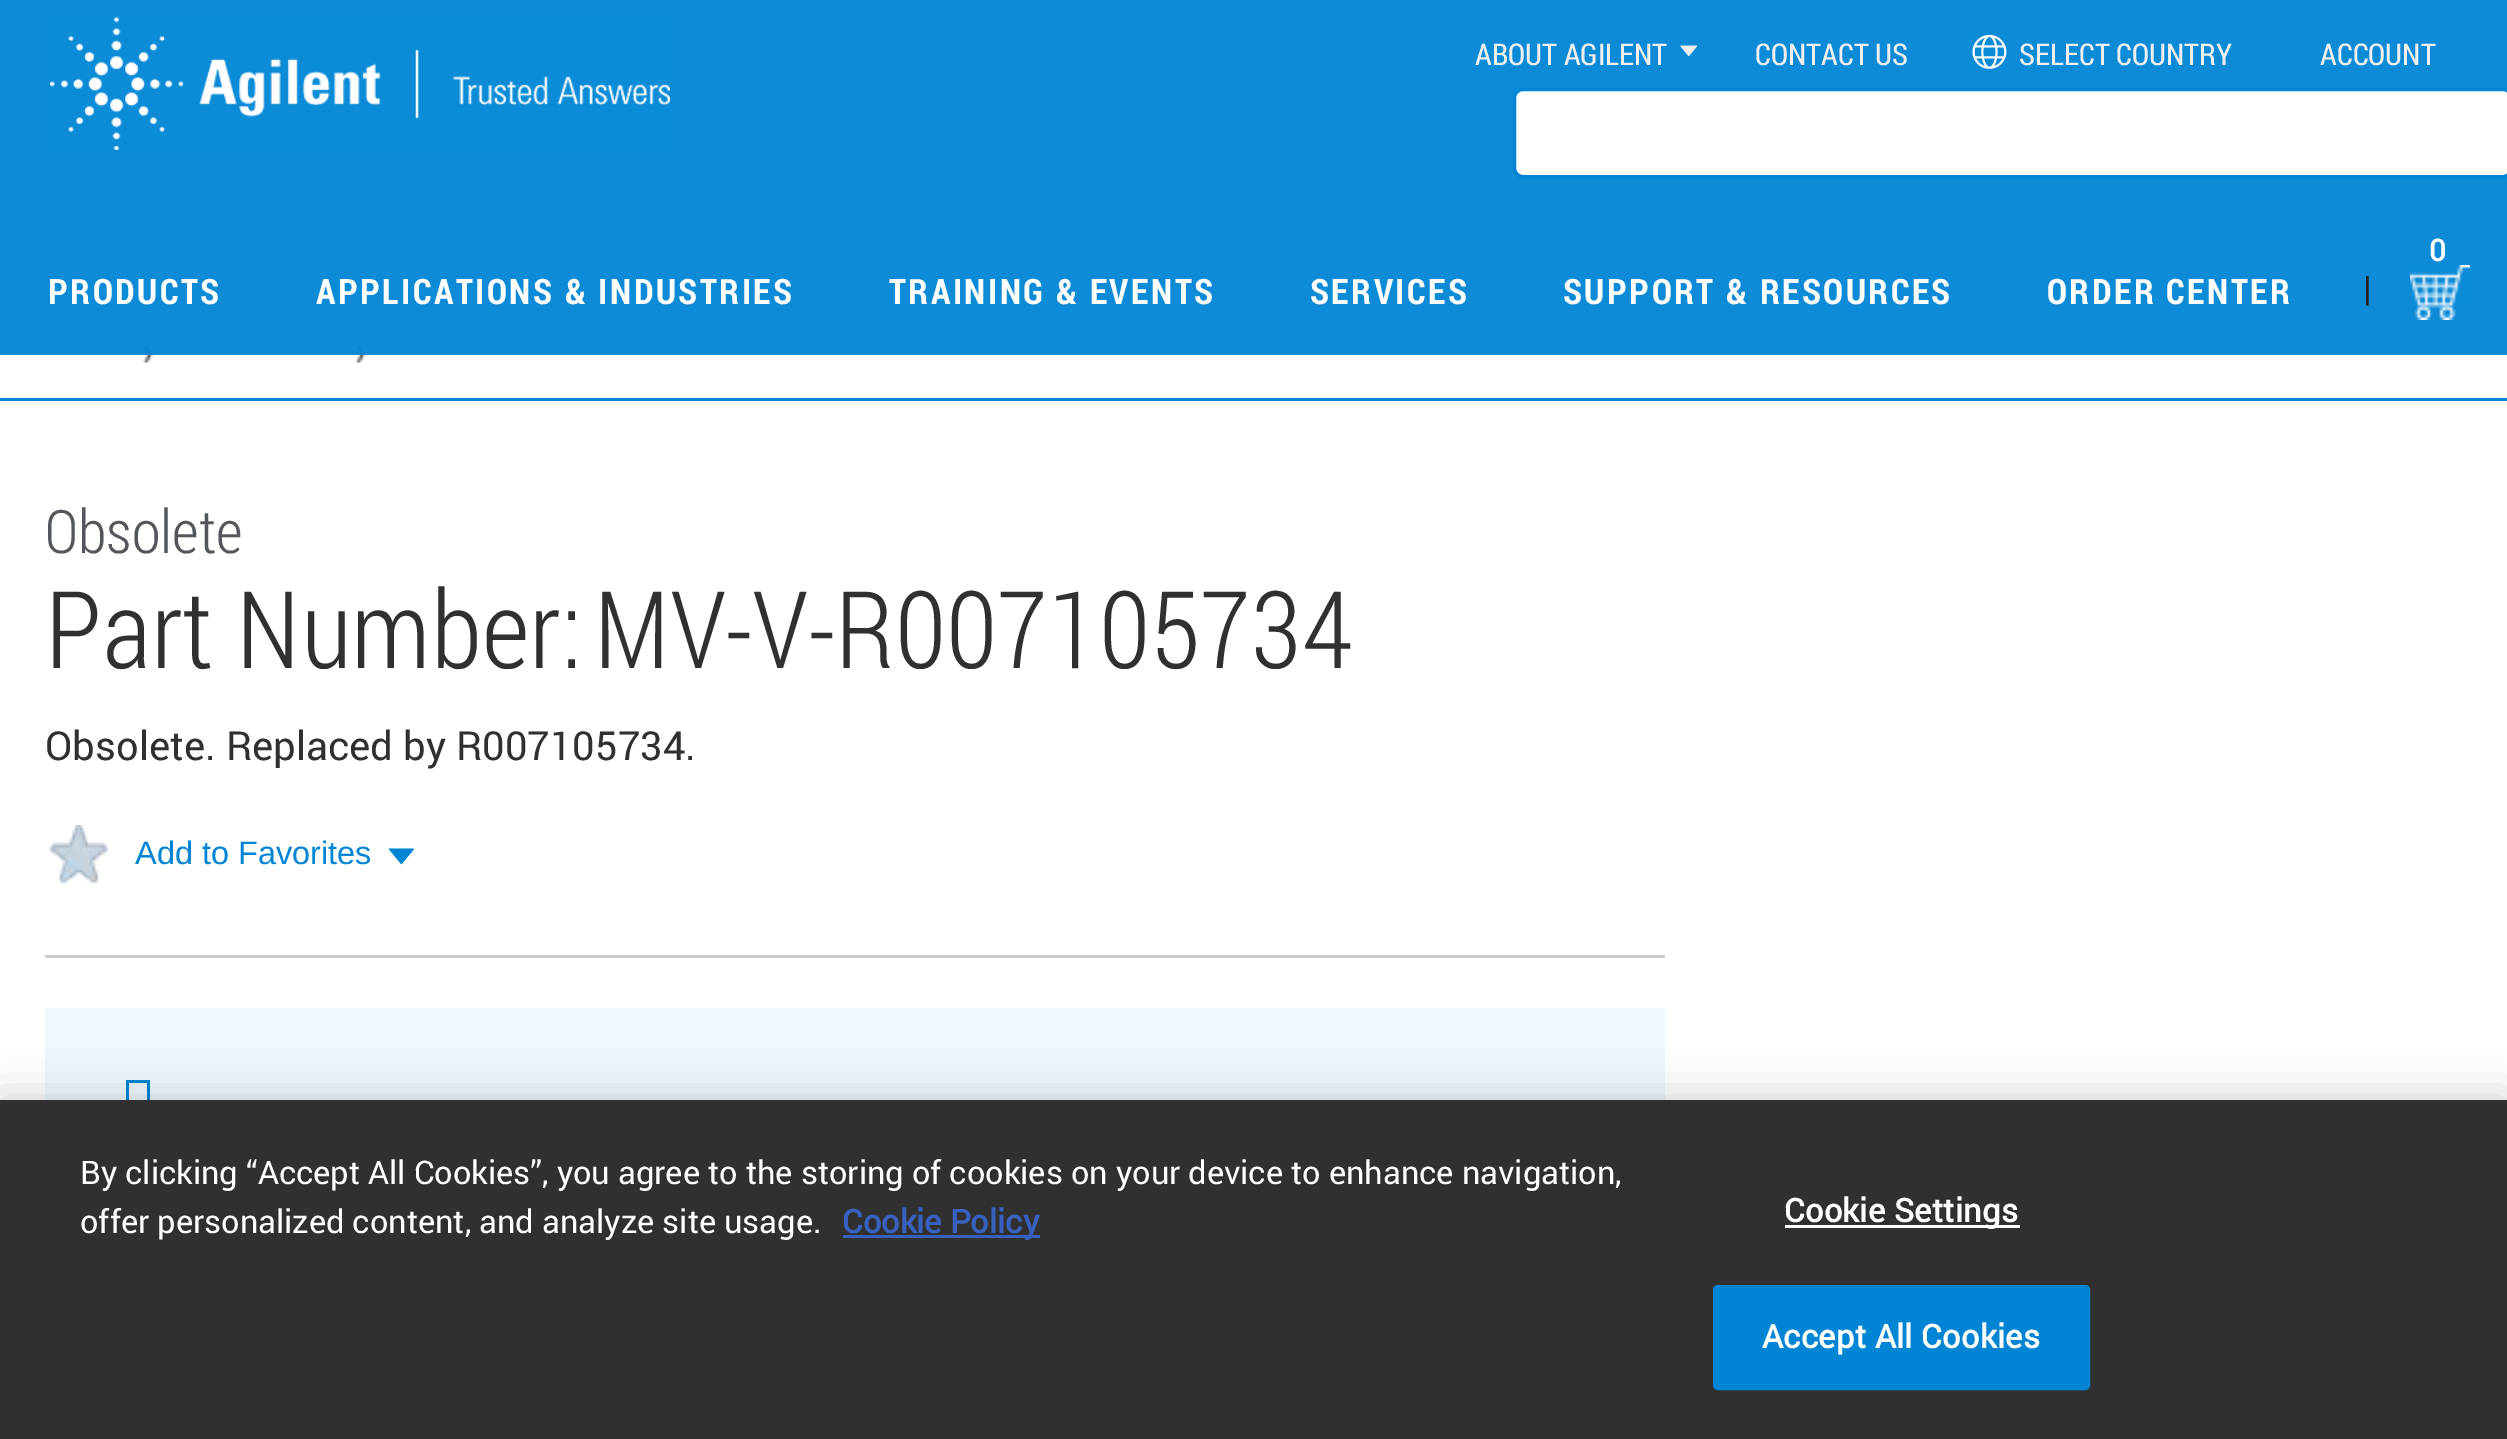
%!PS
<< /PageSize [2507 1439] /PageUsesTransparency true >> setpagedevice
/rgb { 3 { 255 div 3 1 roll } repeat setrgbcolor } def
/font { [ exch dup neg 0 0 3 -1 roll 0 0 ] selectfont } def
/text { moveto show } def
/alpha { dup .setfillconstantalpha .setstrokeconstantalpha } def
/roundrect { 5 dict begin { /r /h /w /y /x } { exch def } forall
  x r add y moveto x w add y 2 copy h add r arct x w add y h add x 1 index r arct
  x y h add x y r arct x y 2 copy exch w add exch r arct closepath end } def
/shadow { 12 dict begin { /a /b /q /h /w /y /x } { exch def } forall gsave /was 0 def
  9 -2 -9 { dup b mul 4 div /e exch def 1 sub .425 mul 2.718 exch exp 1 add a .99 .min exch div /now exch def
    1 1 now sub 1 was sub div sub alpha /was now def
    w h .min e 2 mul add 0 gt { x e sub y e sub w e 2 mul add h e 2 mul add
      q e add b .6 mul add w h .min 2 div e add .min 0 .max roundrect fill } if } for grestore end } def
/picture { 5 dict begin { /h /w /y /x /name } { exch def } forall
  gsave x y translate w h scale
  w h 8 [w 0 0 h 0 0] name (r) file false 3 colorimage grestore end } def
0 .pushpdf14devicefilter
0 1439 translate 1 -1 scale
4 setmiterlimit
246 246 246 rgb
0 0 2507 1439 rectfill
255 255 255 rgb
0 305 2507 795 rectfill
(img_05.rgb) 142 345 12 18 picture
(img_06.rgb) 355 345 11 18 picture
0.95 alpha
0 133 213 rgb
0 0 2507 355 rectfill
1 alpha
(img_01.rgb) 50 17 620 133 picture
(img_02.rgb) 1680 45 18 12 picture
(img_03.rgb) 1972 34 35 35 picture
255 255 255 rgb
1514.5 89.5 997 87 8.5 roundrect gsave fill grestore
0 133 213 rgb
3 setlinewidth
stroke
(img_04.rgb) 2410 265 60 55 picture
0 398 2507 3 rectfill
204 204 204 rgb
45 955 1620 3 rectfill
(img_07.rgb) 49 825 60 59 picture
(img_08.rgb) 388 848 26 17 picture
238 247 252 rgb
45 1008 1620 92 rectfill
0 133 213 rgb
126 1122 moveto 0 -42 rlineto 24 0 rlineto 0 42 rlineto closepath 129 1119 moveto 18 0 rlineto 0 -36 rlineto -18 0 rlineto closepath fill
0 0 0 rgb
0 1100 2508 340 0 22.5 0.2 shadow
48 48 48 rgb
0 1100 2507 339 rectfill
56 96 190 rgb
843 1235 197 3 rectfill
255 255 255 rgb
1785 1225 235 3 rectfill
0 133 213 rgb
1714.5 1286.5 374 102 3.5 roundrect gsave fill grestore
stroke
/RobotoCondensed-Regular 30 font
239 239 240 rgb
(ABOUT AGILENT) 1475 65 text
(CONTACT US) 1755 65 text
(SELECT COUNTRY) 2019 65 text
(ACCOUNT) 2320 65 text
/Roboto-Bold 30 font
255 255 255 rgb
2429 261 moveto 2.5 0 (0) ashow
/RobotoCondensed-Bold 35 font
48 304 moveto 2.5 0 (PRODUCTS) ashow
316 304 moveto 2.5 0 (APPLICATIONS & INDUSTRIES) ashow
889 304 moveto 2.5 0 (TRAINING & EVENTS) ashow
1310 304 moveto 2.5 0 (SERVICES) ashow
1563 304 moveto 2.5 0 (SUPPORT & RESOURCES) ashow
2047 304 moveto 2.5 0 (ORDER CENTER) ashow
/Roboto-Regular 35 font
32 32 32 rgb
(|) 2363 301 text
/RobotoCondensed-Light 60 font
83 86 90 rgb
(Obsolete) 45 553 text
/RobotoCondensed-Light 107.5 font
48 48 48 rgb
(Part Number:) 45 668 text
(MV-V-R007105734) 594 668 text
/Roboto-Regular 40 font
(Obsolete. Replaced by R007105734.) 45 760 text
/LiberationSans-Regular 32.5 font
0 133 213 rgb
(Add to Favorites) 135 864 text
/Roboto-Regular 32.5 font
255 255 255 rgb
(By clicking “Accept All Cookies”, you agree to the storing of cookies on your device to enhance navigation,) 80 1184 text
(offer personalized content, and analyze site usage.) 80 1233 text
/Roboto-Bold 32.5 font
56 96 190 rgb
(Cookie Policy) 842 1233 text
255 255 255 rgb
1784 1222 moveto 0.3 0 (Cookie Settings) ashow
1762 1348 moveto 0.3 0 (Accept All Cookies) ashow
.poppdf14devicefilter showpage
